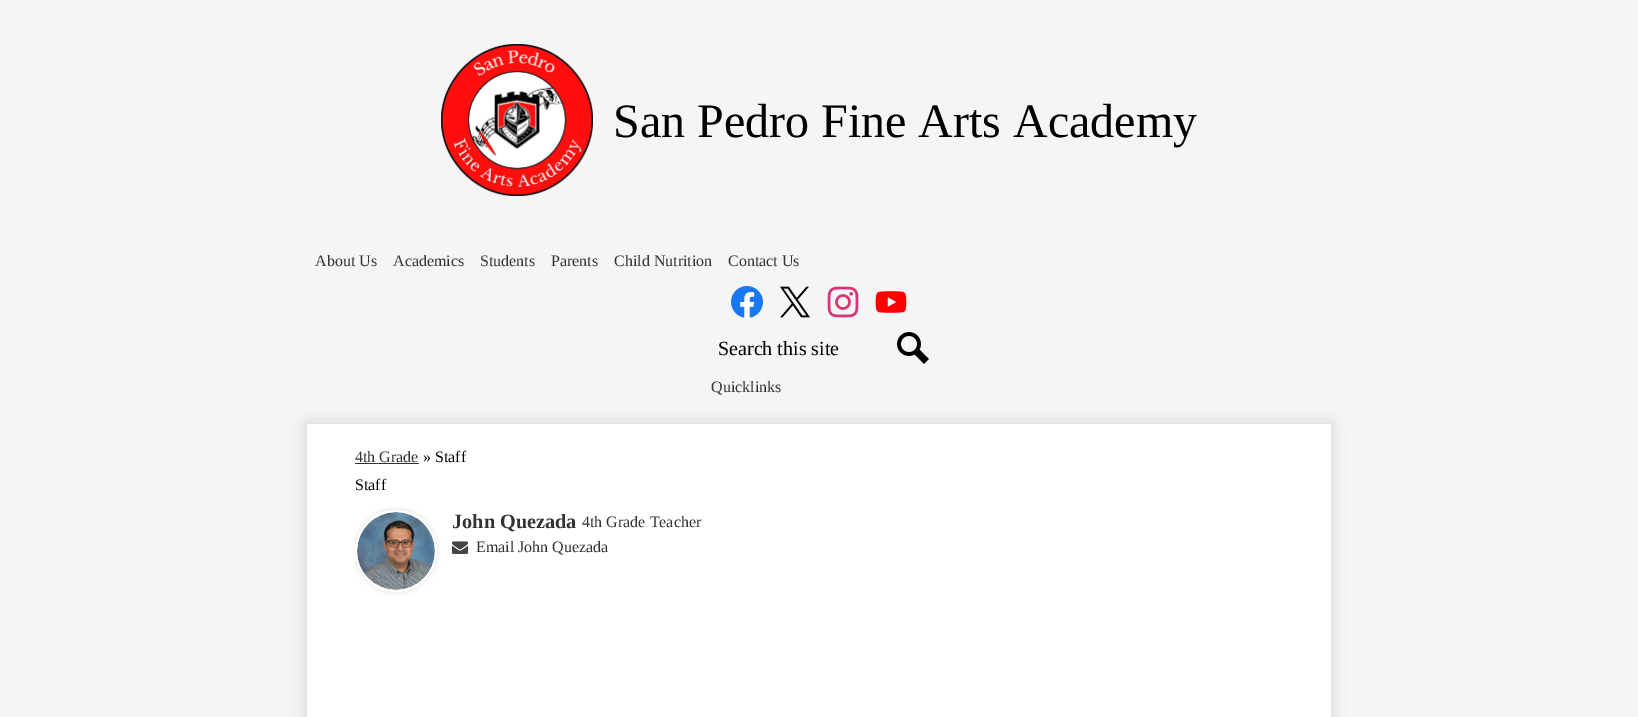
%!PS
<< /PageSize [1638 717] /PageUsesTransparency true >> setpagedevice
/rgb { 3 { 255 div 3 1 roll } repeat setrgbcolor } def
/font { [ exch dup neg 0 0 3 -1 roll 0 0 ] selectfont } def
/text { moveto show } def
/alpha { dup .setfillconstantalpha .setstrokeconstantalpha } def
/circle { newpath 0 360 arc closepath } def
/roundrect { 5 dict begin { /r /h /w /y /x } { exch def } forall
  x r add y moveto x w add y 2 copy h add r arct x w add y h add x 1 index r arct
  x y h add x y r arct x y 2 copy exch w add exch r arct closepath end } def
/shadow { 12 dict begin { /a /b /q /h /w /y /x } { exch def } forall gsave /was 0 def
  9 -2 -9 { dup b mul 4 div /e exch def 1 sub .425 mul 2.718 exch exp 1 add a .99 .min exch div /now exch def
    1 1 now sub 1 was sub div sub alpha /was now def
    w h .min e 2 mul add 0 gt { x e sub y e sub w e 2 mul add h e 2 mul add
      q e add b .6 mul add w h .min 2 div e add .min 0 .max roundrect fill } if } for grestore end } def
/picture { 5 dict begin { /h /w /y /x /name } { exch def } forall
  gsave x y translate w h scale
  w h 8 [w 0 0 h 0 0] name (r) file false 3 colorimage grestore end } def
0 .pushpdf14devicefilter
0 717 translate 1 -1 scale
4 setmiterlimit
245 245 245 rgb
0 0 1638 717 rectfill
(img_01.rgb) 441 44 152 152 picture
(img_02.rgb) 731 286 32 32 picture
(img_03.rgb) 780 286 30 32 picture
(img_04.rgb) 827 286 32 32 picture
(img_05.rgb) 875 291 32 22 picture
(img_06.rgb) 897 332 32 32 picture
0 0 0 rgb
307 424 1024 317 0 8 0.15 shadow
255 255 255 rgb
307 424 1024 293 rectfill
51 51 51 rgb
355 463 64 1 rectfill
gsave
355 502 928 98 rectclip
0 0 0 rgb
355 510 82 82 41 2.5 0.14 shadow
grestore
255 255 255 rgb
2 setlinewidth
396 551 40 circle stroke
(img_07.rgb) 357 512 78 78 picture
(img_08.rgb) 452 541 16 13 picture
/LiberationSerif-Regular 48 font
0 0 0 rgb
(San Pedro Fine Arts Academy) 613 137 text
/LiberationSerif-Regular 16 font
51 51 51 rgb
(About Us) 315 266 text
(Academics) 393 266 text
(Students) 480 266 text
(Parents) 551 266 text
(Child Nutrition) 614 266 text
(Contact Us) 728 266 text
/LiberationSerif-Regular 20 font
0 0 0 rgb
(Search this site) 718 355 text
/LiberationSerif-Regular 16 font
51 51 51 rgb
(Quicklinks) 711 392 text
(4th Grade) 355 462 text
0 0 0 rgb
(» Staff) 423 462 text
(Staff) 355 490 text
/LiberationSerif-Bold 20.25 font
51 51 51 rgb
(John Quezada) 452 528 text
/LiberationSerif-Regular 16 font
(4th Grade Teacher) 582 527 text
(Email John Quezada) 476 552 text
.poppdf14devicefilter showpage
